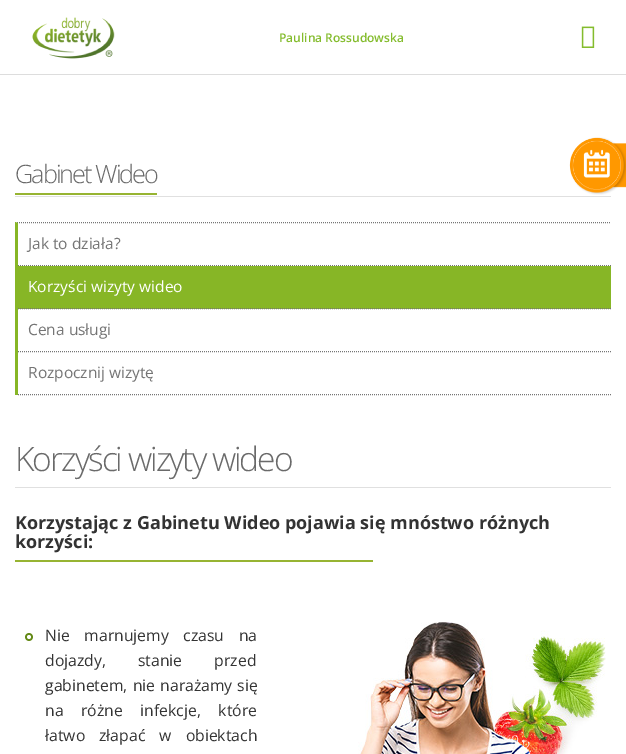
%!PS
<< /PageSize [626 754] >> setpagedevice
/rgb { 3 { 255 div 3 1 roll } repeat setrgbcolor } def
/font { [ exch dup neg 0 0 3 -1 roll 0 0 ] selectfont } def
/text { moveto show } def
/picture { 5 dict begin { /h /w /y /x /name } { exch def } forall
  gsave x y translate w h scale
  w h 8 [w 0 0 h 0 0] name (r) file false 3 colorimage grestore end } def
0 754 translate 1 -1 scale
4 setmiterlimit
255 255 255 rgb
0 0 626 754 rectfill
221 221 221 rgb
0 74 626 1 rectfill
(img_01.rgb) 32 17 83 42 picture
(img_02.rgb) 581 26 14 22 picture
224 224 224 rgb
15 196 596 1 rectfill
151 180 50 rgb
15 193 142 2 rectfill
117 117 117 rgb
[1 1] 0 setdash
15 222.5 moveto 596 0 rlineto stroke
135 182 38 rgb
15 395 moveto 0 -173 rlineto 3 1 rlineto 0 172 rlineto closepath fill
117 117 117 rgb
18 265.5 moveto 593 0 rlineto stroke
135 182 38 rgb
18 266 593 43 rectfill
117 117 117 rgb
18 308.5 moveto 593 0 rlineto stroke
18 351.5 moveto 593 0 rlineto stroke
18 394.5 moveto 593 0 rlineto stroke
224 224 224 rgb
15 487 596 1 rectfill
151 180 50 rgb
15 560 358 2 rectfill
(img_03.rgb) 25 633 8 8 picture
(img_04.rgb) 358 622 248 132 picture
(img_05.rgb) 569 137 57 58 picture
/OpenSans-SemiBold 12 font
132 188 45 rgb
(Paulina Rossudowska) 279 42 text
/OpenSans-Light 25.25 font
106 106 106 rgb
15 183 moveto -2 0 (Gabinet Wideo) ashow
/OpenSans-Regular 15.5 font
117 117 117 rgb
(Jak to działa?) 28 249 text
255 255 255 rgb
(Korzyści wizyty wideo) 28 292 text
117 117 117 rgb
(Cena usługi) 28 335 text
(Rozpocznij wizytę) 28 378 text
/OpenSans-Light 33.5 font
106 106 106 rgb
15 471 moveto -2 0 (Korzyści wizyty wideo) ashow
/OpenSans-Bold 18 font
51 51 51 rgb
(Korzystając z Gabinetu Wideo pojawia się mnóstwo różnych) 15 529 text
(korzyści:) 15 548 text
/OpenSans-Regular 15.75 font
45 641 moveto 10.5 0 32 (Nie marnujemy czasu na) widthshow
45 666 moveto 28 0 32 (dojazdy, stanie przed) widthshow
45 691 moveto 1 0 32 (gabinetem, nie narażamy się) widthshow
45 716 moveto 13.5 0 32 (na różne infekcje, które) widthshow
45 741 moveto 10 0 32 (łatwo złapać w obiektach) widthshow
showpage
